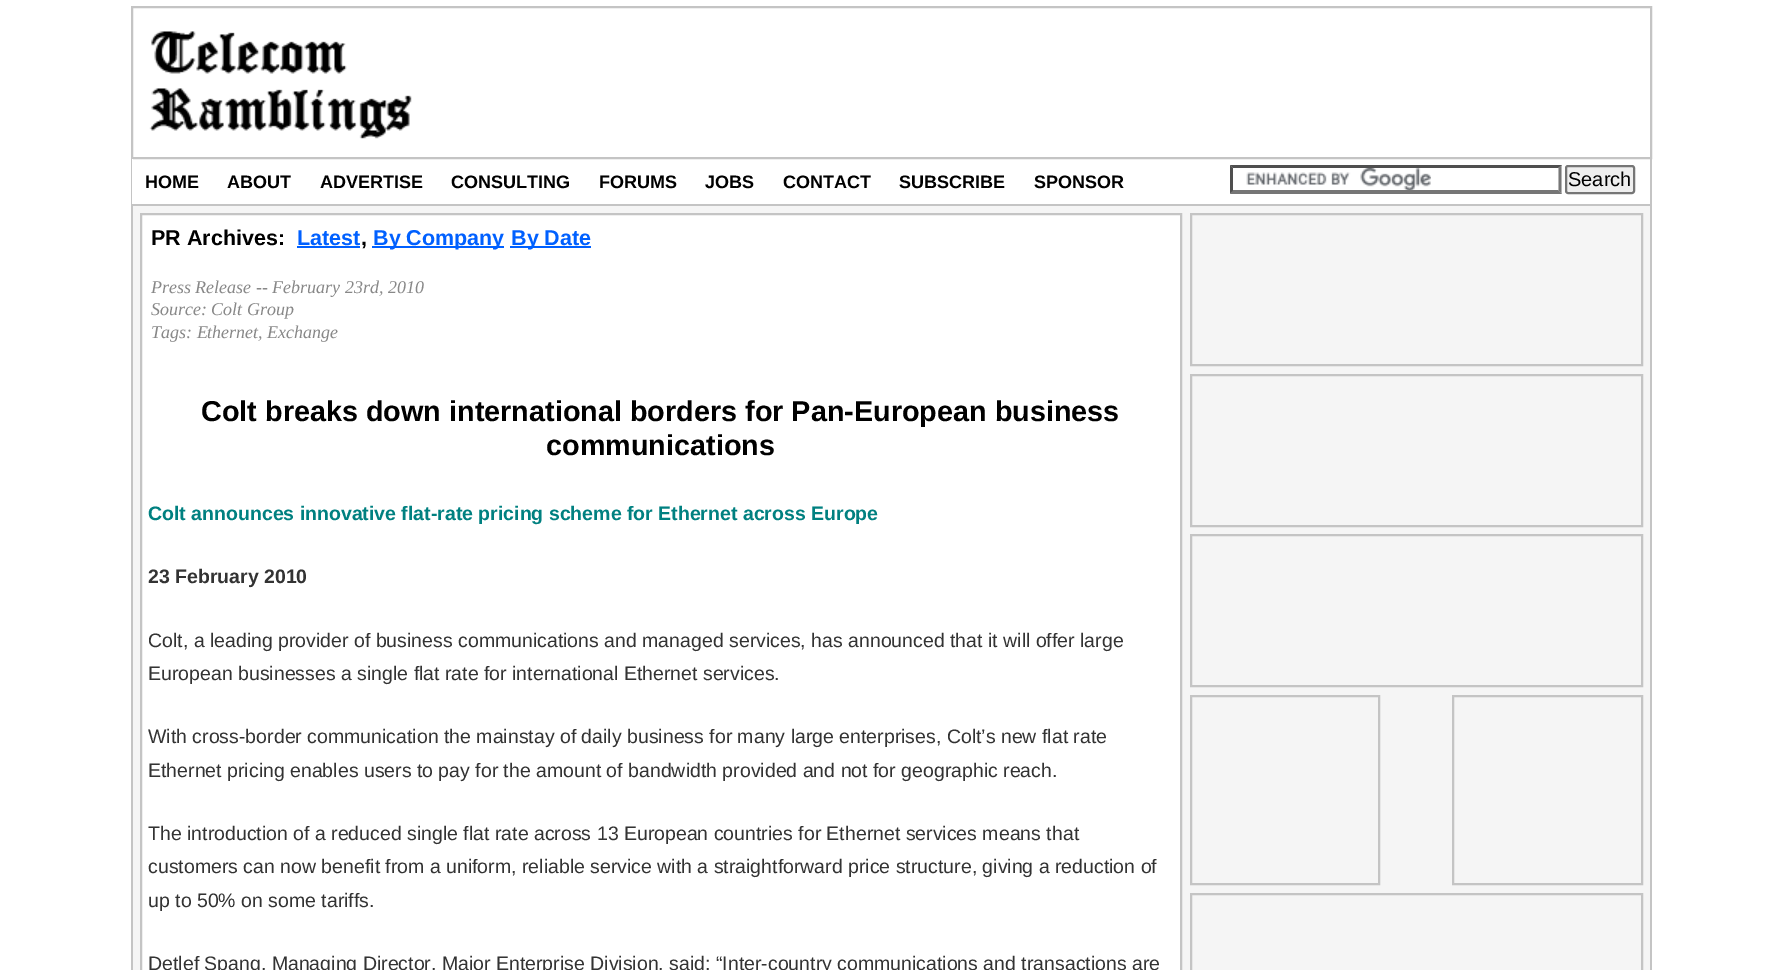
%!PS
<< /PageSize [1780 970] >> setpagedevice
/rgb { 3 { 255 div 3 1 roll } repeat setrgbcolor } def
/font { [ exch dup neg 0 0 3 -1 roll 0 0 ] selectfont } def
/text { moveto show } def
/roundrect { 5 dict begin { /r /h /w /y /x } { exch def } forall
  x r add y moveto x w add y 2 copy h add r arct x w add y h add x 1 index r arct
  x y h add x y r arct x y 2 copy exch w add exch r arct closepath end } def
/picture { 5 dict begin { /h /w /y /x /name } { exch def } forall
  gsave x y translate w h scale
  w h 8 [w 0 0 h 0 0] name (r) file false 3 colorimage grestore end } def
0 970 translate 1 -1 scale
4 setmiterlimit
255 255 255 rgb
0 0 1780 970 rectfill
196 196 196 rgb
2 setlinewidth
132 7 1519 151 rectstroke
(img_01.rgb) 149 31 263 108 picture
1650 159 2 811 rectfill
131 204 1521 2 rectfill
131 159 2 811 rectfill
255 255 255 rgb
132 159 1 45 rectfill
(img_02.rgb) 1246 168 185 22 picture
79 79 79 rgb
1230 165 moveto 332 0 rlineto -4 3 rlineto -325 0 rlineto closepath fill
118 118 118 rgb
1561.5 165 moveto 0 28.5 rlineto -3 -3 rlineto 0 -22.5 rlineto closepath fill
1562 194 moveto -332 0 rlineto 3 -4 rlineto 325 0 rlineto closepath fill
79 79 79 rgb
1230 193.5 moveto 0 -28.5 rlineto 3 3 rlineto 0 22.5 rlineto closepath fill
239 239 239 rgb
1566 166 68 27 2 roundrect gsave fill grestore
118 118 118 rgb
stroke
245 245 245 rgb
133 206 1517 764 rectfill
255 255 255 rgb
141 214 moveto 1040 0 rlineto 0 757 rlineto -1040 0 rlineto closepath gsave fill grestore
196 196 196 rgb
stroke
0 96 255 rgb
297 246 63 2 rectfill
372 246 132 2 rectfill
510 246 81 2 rectfill
196 196 196 rgb
1191 214 451 151 rectstroke
1191 375 451 151 rectstroke
1191 535 451 151 rectstroke
1191 696 188 188 rectstroke
1453 696 189 188 rectstroke
1191 894 451 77 rectstroke
/LiberationSans-Bold 18 font
0 0 0 rgb
(HOME) 145 188 text
(ABOUT) 227 188 text
(ADVERTISE) 320 188 text
(CONSULTING) 451 188 text
(FORUMS) 599 188 text
(JOBS) 705 188 text
(CONTACT) 783 188 text
(SUBSCRIBE) 899 188 text
(SPONSOR) 1034 188 text
/LiberationSans-Regular 20 font
(Search) 1568 186 text
/LiberationSans-Bold 21.5 font
(PR Archives:) 151 245 text
0 96 255 rgb
(Latest) 297 245 text
0 0 0 rgb
(,) 361 245 text
0 96 255 rgb
(By Company) 373 245 text
(By Date) 511 245 text
/LiberationSerif-Italic 18 font
136 136 136 rgb
(Press Release -- February 23rd, 2010) 151 293 text
(Source: Colt Group) 151 315 text
(Tags: Ethernet, Exchange) 151 338 text
/LiberationSans-Bold 28.8 font
0 0 0 rgb
(Colt breaks down international borders for Pan-European business) 201 421 text
(communications) 546 455 text
/LiberationSans-Bold 19.5 font
0 128 128 rgb
(Colt announces innovative flat-rate pricing scheme for Ethernet across Europe) 148 520 text
51 51 51 rgb
(23 February 2010) 148 583 text
/LiberationSans-Regular 19.5 font
(Colt, a leading provider of business communications and managed services, has announced that it will offer large) 148 647 text
(European businesses a single flat rate for international Ethernet services.) 148 680 text
(With cross-border communication the mainstay of daily business for many large enterprises, Colt’s new flat rate) 148 743 text
(Ethernet pricing enables users to pay for the amount of bandwidth provided and not for geographic reach.) 148 777 text
(The introduction of a reduced single flat rate across 13 European countries for Ethernet services means that) 148 840 text
(customers can now benefit from a uniform, reliable service with a straightforward price structure, giving a reduction of) 148 873 text
(up to 50% on some tariffs.) 148 907 text
(Detlef Spang, Managing Director, Major Enterprise Division, said: “Inter-country communications and transactions are) 148 970 text
showpage
